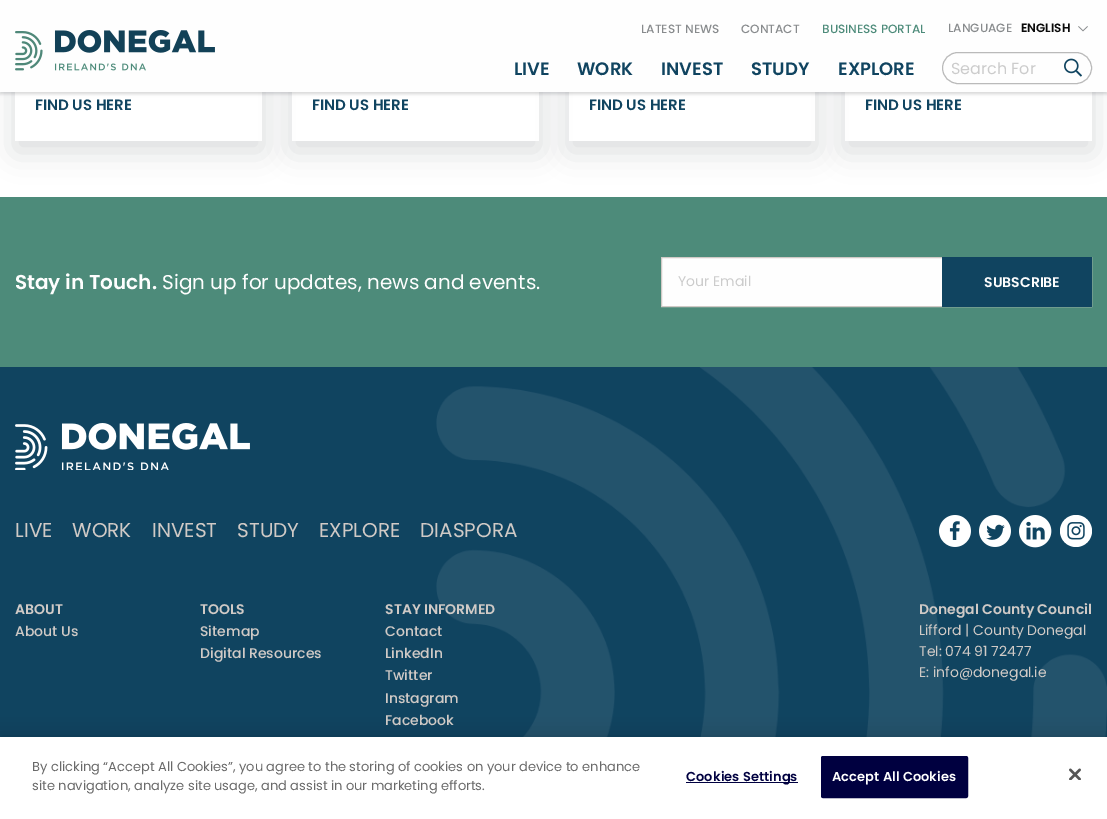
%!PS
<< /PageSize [1107 819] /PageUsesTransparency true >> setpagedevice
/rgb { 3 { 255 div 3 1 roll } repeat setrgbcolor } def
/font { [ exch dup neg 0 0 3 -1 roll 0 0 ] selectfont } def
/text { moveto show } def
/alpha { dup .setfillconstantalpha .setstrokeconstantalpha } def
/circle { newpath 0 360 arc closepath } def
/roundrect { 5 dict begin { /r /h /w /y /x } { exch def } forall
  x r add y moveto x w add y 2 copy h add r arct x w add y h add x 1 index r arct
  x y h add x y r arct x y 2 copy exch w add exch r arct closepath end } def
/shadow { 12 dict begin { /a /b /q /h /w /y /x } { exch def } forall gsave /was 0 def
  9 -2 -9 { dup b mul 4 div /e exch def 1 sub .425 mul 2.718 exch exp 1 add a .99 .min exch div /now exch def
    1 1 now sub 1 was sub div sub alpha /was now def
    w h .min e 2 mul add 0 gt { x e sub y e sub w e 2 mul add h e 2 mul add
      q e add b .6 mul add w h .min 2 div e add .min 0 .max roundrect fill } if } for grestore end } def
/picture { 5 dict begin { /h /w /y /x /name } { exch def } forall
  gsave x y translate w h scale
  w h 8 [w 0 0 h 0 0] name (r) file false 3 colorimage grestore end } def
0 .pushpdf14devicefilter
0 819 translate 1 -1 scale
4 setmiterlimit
255 255 255 rgb
0 0 1107 819 rectfill
0 0 0 rgb
0 2 1107 92 0 1.5 0.15 shadow
gsave
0 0 moveto 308 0 rlineto 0 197 rlineto -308 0 rlineto closepath 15 -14 moveto 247 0 rlineto 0 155 rlineto -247 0 rlineto closepath eoclip newpath
5 19 36 rgb
15 -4 247 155 0 15 0.15 shadow
grestore
gsave
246 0 moveto 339 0 rlineto 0 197 rlineto -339 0 rlineto closepath 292 -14 moveto 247 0 rlineto 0 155 rlineto -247 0 rlineto closepath eoclip newpath
5 19 36 rgb
292 -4 247 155 0 15 0.15 shadow
grestore
gsave
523 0 moveto 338 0 rlineto 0 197 rlineto -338 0 rlineto closepath 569 -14 moveto 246 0 rlineto 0 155 rlineto -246 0 rlineto closepath eoclip newpath
5 19 36 rgb
569 -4 246 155 0 15 0.15 shadow
grestore
gsave
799 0 moveto 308 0 rlineto 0 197 rlineto -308 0 rlineto closepath 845 -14 moveto 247 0 rlineto 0 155 rlineto -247 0 rlineto closepath eoclip newpath
5 19 36 rgb
845 -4 247 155 0 15 0.15 shadow
grestore
254 254 254 rgb
0 0 1107 92 rectfill
(img_01.rgb) 15 30 200 41 picture
(img_02.rgb) 1078 26 10 6 picture
186 186 186 rgb
942.5 52.5 149 31 15.5 roundrect stroke
(img_03.rgb) 1064 58 18 19 picture
77 139 122 rgb
0 197 1107 170 rectfill
254 254 254 rgb
662 258 280 48 rectfill
208 202 198 rgb
661.5 257.5 430 49 rectstroke
16 68 96 rgb
942 257 150 50 rectfill
0 367 1107 370 rectfill
(img_04.rgb) 436 367 671 370 picture
(img_05.rgb) 15 423 235 47 picture
(img_06.rgb) 939 515 32 32 picture
(img_07.rgb) 979 515 32 32 picture
(img_08.rgb) 1019 515 33 33 picture
255 255 255 rgb
1076 531 16 circle fill
(img_09.rgb) 1067 522 18 18 picture
0 0 0 rgb
0 737 1107 82 0 9 0.2 shadow
255 255 255 rgb
0 737 1107 82 rectfill
0 0 64 rgb
686 782 112 1 rectfill
821.5 756.5 146 41 1.5 roundrect gsave fill grestore
stroke
(img_10.rgb) 1069 768 12 12 picture
/Poppins-Medium 12 font
136 139 141 rgb
(LATEST NEWS) 641 33 text
(CONTACT) 741 33 text
77 139 122 rgb
(BUSINESS PORTAL) 822 33 text
136 139 141 rgb
(LANGUAGE) 948 32 text
/Poppins-SemiBold 12 font
10 10 10 rgb
(ENGLISH) 1021 32 text
/Poppins-SemiBold 18 font
16 68 96 rgb
(LIVE) 514 75 text
(WORK) 577 75 text
(INVEST) 661 75 text
(STUDY) 751 75 text
(EXPLORE) 838 75 text
/Poppins-Regular 16 font
204 204 204 rgb
(Search For) 951 74 text
/Poppins-SemiBold 15 font
16 68 96 rgb
(FIND US HERE) 35 110 text
(FIND US HERE) 312 110 text
(FIND US HERE) 589 110 text
(FIND US HERE) 865 110 text
/Poppins-SemiBold 20 font
254 254 254 rgb
(Stay in Touch.) 15 289 text
/Poppins-Regular 20 font
(Sign up for updates, news and events.) 162 289 text
/Poppins-Regular 14 font
204 204 204 rgb
(Your Email) 678 286 text
/Poppins-SemiBold 14 font
254 254 254 rgb
(SUBSCRIBE) 984 287 text
/Poppins-Regular 20 font
208 202 198 rgb
(LIVE) 15 537 text
(WORK) 72 537 text
(INVEST) 152 537 text
(STUDY) 237 537 text
(EXPLORE) 319 537 text
(DIASPORA) 420 537 text
/Poppins-SemiBold 14 font
(ABOUT) 15 614 text
/Poppins-Medium 14 font
(About Us) 15 636 text
/Poppins-SemiBold 14 font
(TOOLS) 200 614 text
/Poppins-Medium 14 font
(Sitemap) 200 636 text
(Digital Resources) 200 658 text
/Poppins-SemiBold 14 font
(STAY INFORMED) 385 614 text
/Poppins-Medium 14 font
(Contact) 385 636 text
(LinkedIn) 385 658 text
(Twitter) 385 680 text
(Instagram) 385 703 text
(Facebook) 385 725 text
/Poppins-SemiBold 14 font
(Donegal County Council) 919 614 text
/Poppins-Regular 14 font
(Lifford | County Donegal) 919 635 text
(Tel: 074 91 72477) 919 656 text
(E: info@donegal.ie) 919 677 text
/Poppins-Regular 13 font
105 105 105 rgb
(By clicking “Accept All Cookies”, you agree to the storing of cookies on your device to enhance) 32 771 text
(site navigation, analyze site usage, and assist in our marketing efforts.) 32 790 text
/Poppins-SemiBold 13 font
0 0 64 rgb
686 781 moveto 0.1 0 (Cookies Settings) ashow
254 254 254 rgb
832 781 moveto 0.1 0 (Accept All Cookies) ashow
.poppdf14devicefilter showpage
